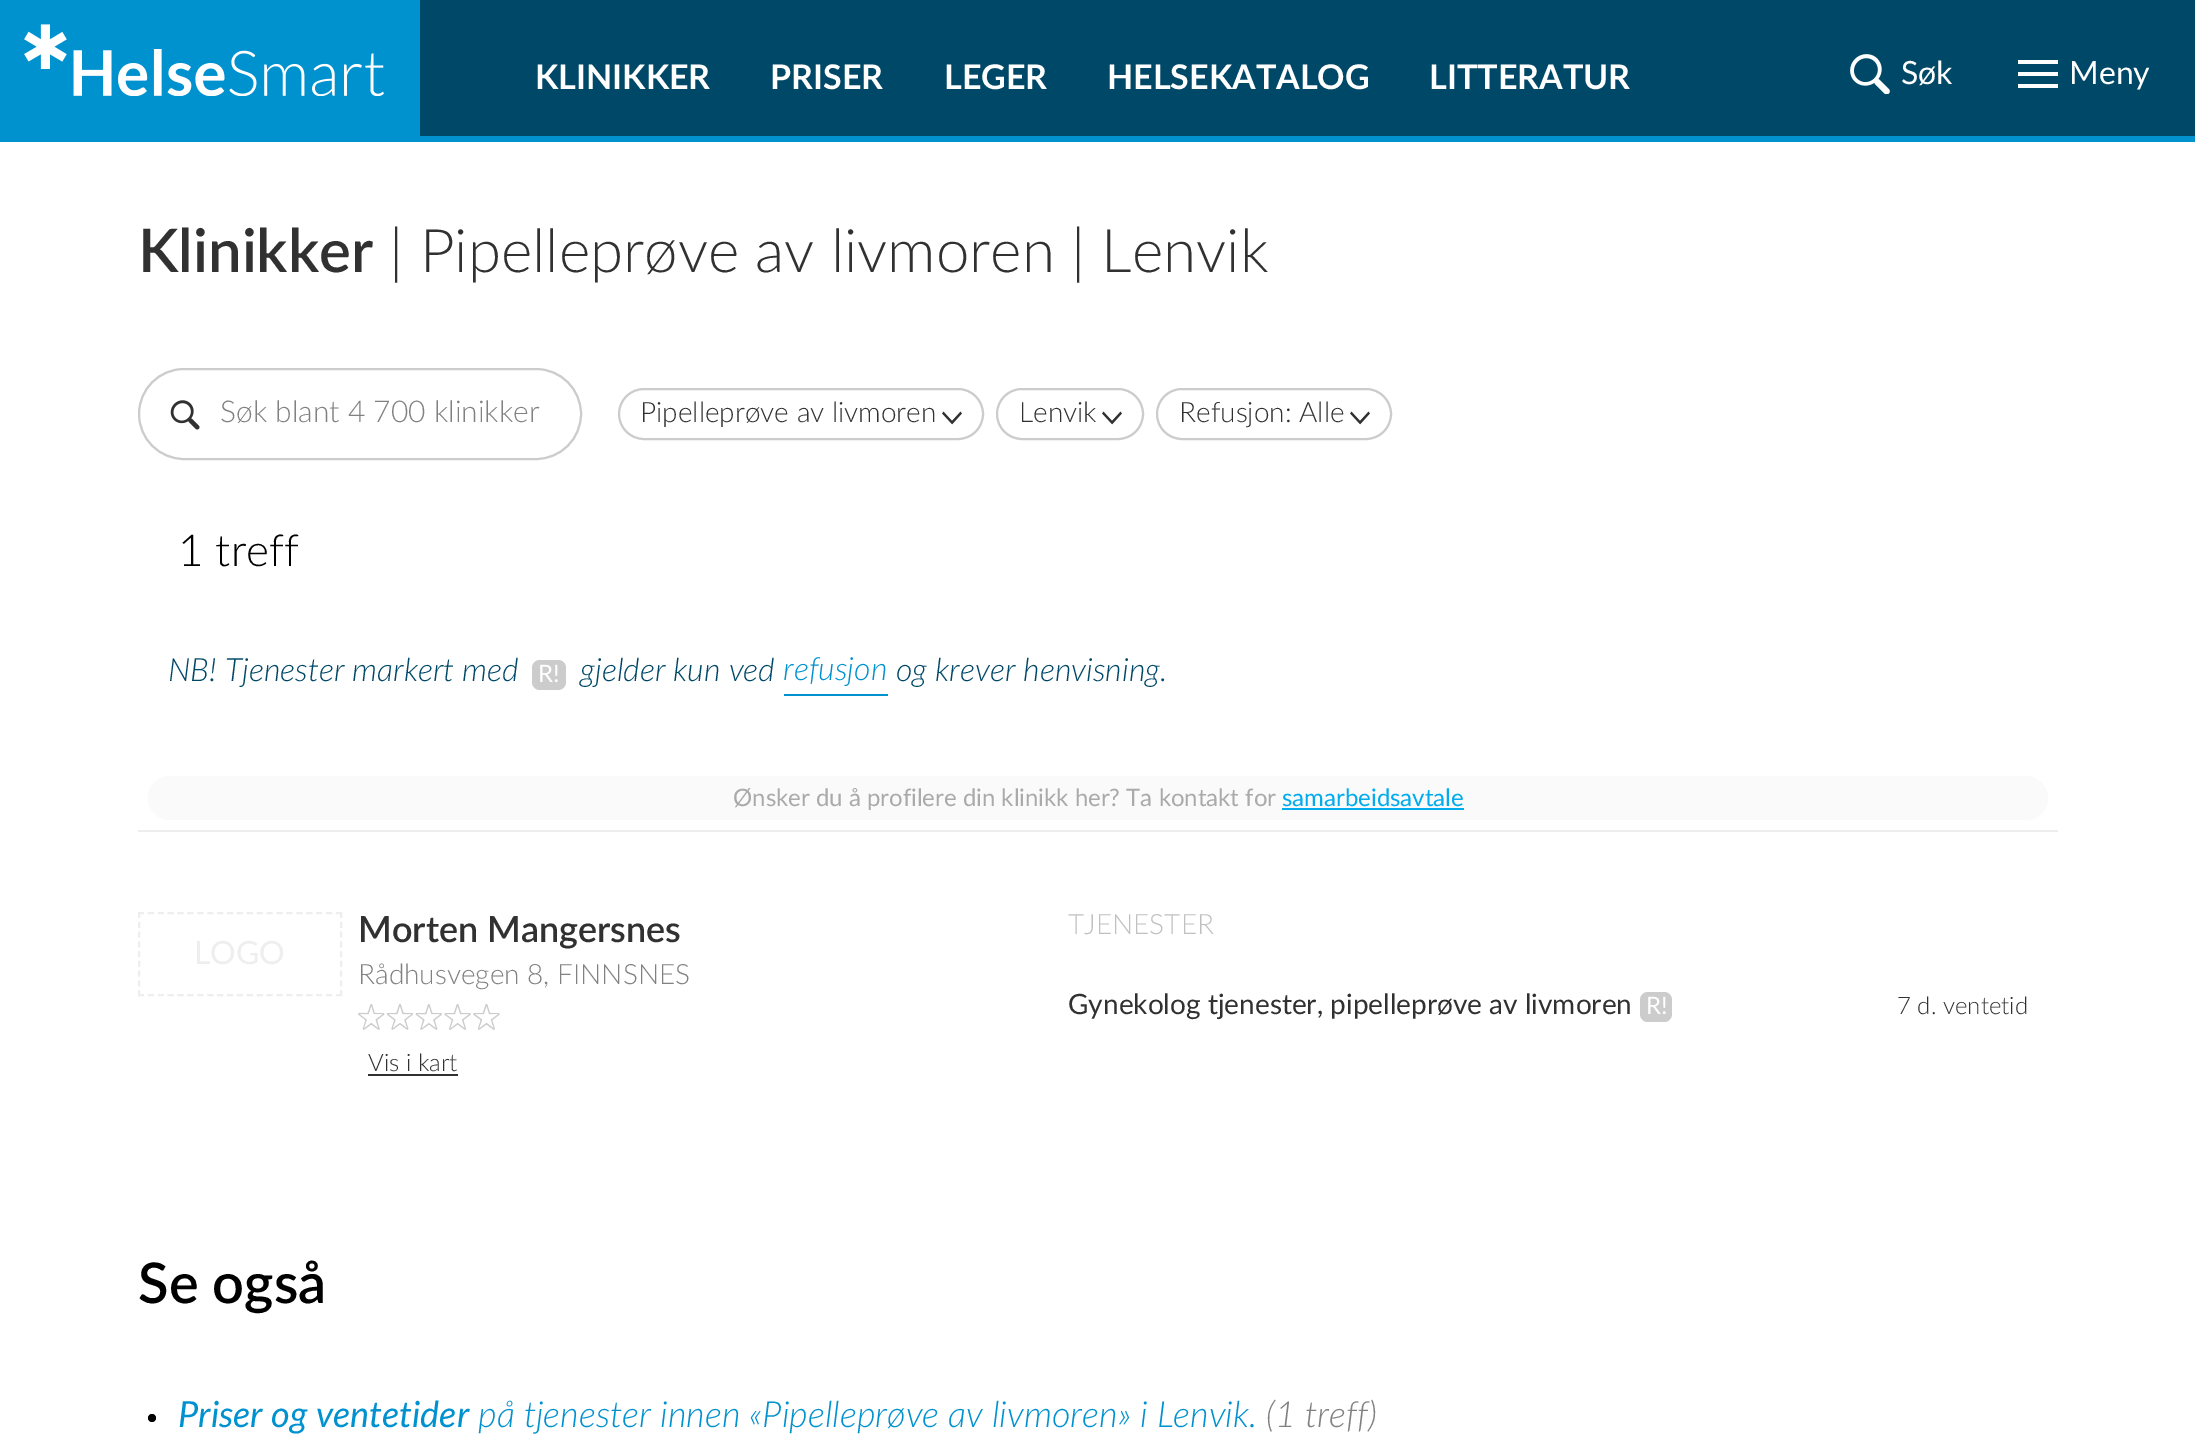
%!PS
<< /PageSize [2195 1444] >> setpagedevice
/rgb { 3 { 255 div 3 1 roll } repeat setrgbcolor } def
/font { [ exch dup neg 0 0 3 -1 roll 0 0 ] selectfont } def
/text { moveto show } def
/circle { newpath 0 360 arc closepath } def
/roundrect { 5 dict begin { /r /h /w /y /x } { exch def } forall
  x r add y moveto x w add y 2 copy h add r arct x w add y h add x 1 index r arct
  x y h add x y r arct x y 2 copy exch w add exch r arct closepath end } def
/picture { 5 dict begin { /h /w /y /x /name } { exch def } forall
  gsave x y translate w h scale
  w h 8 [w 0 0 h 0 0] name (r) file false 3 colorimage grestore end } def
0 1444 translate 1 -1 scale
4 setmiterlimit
255 255 255 rgb
0 0 2195 1444 rectfill
0 72 103 rgb
420 0 1775 136 rectfill
0 145 207 rgb
0 136 2195 6 rectfill
0 0 420 136 rectfill
(img_01.rgb) 24 24 360 72 picture
(img_02.rgb) 1850 54 40 40 picture
255 255 255 rgb
2018 60 moveto 40 0 rlineto 0 4 rlineto -40 0 rlineto closepath 2018 72 moveto 40 0 rlineto 0 4 rlineto -40 0 rlineto closepath 2018 84 moveto 40 0 rlineto 0 4 rlineto -40 0 rlineto closepath eofill
(img_03.rgb) 170 400 30 30 picture
204 204 204 rgb
2 setlinewidth
139 369 442 90 45 roundrect stroke
(img_04.rgb) 942 411 20 14 picture
619 389 364 50 25 roundrect stroke
(img_04.rgb) 1102 411 20 14 picture
997 389 146 50 25 roundrect stroke
(img_04.rgb) 1350 411 20 14 picture
1157 389 234 50 25 roundrect stroke
532 660 34 30 8 roundrect fill
(img_05.rgb) 540 664 18 19 picture
0 145 207 rgb
784 694 104 2 rectfill
250 250 250 rgb
148 776 1900 44 22 roundrect fill
0 172 237 rgb
1282 808 182 2 rectfill
238 238 238 rgb
138 830 1920 2 rectfill
[6 3.9] 0 setdash
138 913 moveto 204 0 rlineto stroke
[6 3.76] 0 setdash
341 912 moveto 0 84 rlineto stroke
[6 3.9] 0 setdash
138 995 moveto 204 0 rlineto stroke
[6 3.76] 0 setdash
139 912 moveto 0 84 rlineto stroke
(img_06.rgb) 358 1004 142 26 picture
49 49 49 rgb
368 1074 90 2 rectfill
204 204 204 rgb
1640 992 32 30 8 roundrect fill
(img_05.rgb) 1648 996 18 19 picture
0 0 0 rgb
152 1418 4 circle fill
/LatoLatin-Bold 34 font
255 255 255 rgb
(KLINIKKER) 535 89 text
(PRISER) 770 89 text
(LEGER) 944 89 text
(HELSEKATALOG) 1107 89 text
(LITTERATUR) 1429 89 text
/LatoLatin-Regular 32 font
(Søk) 1901 84 text
(Meny) 2069 84 text
/LatoLatin-SemiBold 60 font
49 49 49 rgb
(Klinikker) 138 272 text
/LatoLatin-Light 60 font
(| Pipelleprøve av livmoren | Lenvik) 389 272 text
/LatoLatin-Light 30 font
129 129 129 rgb
(Søk blant 4 700 klinikker) 220 422 text
/LatoLatin-Light 28 font
49 49 49 rgb
(Pipelleprøve av livmoren) 640 422 text
(Lenvik) 1019 422 text
(Refusjon: Alle) 1179 422 text
/LatoLatin-Light 44 font
0 0 0 rgb
(1 treff) 178 566 text
/LatoLatin-LightItalic 32 font
0 72 103 rgb
(NB! Tjenester markert med) 168 681 text
(gjelder kun ved) 580 681 text
0 145 207 rgb
(refusjon) 783 680 text
0 72 103 rgb
(og krever henvisning.) 896 681 text
/LatoLatin-Regular 24 font
170 170 170 rgb
(Ønsker du å profilere din klinikk her? Ta kontakt for) 733 806 text
0 172 237 rgb
(samarbeidsavtale) 1282 806 text
/LatoLatin-Regular 32 font
238 238 238 rgb
(LOGO) 194 964 text
/LatoLatin-SemiBold 36 font
49 49 49 rgb
(Morten Mangersnes) 358 942 text
/LatoLatin-Light 28 font
129 129 129 rgb
(Rådhusvegen 8, FINNSNES) 358 984 text
/LatoLatin-Light 24 font
49 49 49 rgb
(Vis i kart) 368 1071 text
/LatoLatin-Light 28 font
192 192 192 rgb
(TJENESTER) 1068 934 text
/LatoLatin-Regular 28 font
49 49 49 rgb
(Gynekolog tjenester, pipelleprøve av livmoren) 1068 1014 text
/LatoLatin-Light 24 font
(7 d. ventetid) 1897 1014 text
/LatoLatin-SemiBold 56 font
0 0 0 rgb
(Se også) 138 1303 text
/LatoLatin-Italic 36 font
0 145 207 rgb
(Priser og ventetider) 178 1427 text
/LatoLatin-LightItalic 36 font
(på tjenester innen «Pipelleprøve av livmoren» i Lenvik.) 478 1427 text
129 129 129 rgb
(\(1 treff\)) 1266 1427 text
showpage
